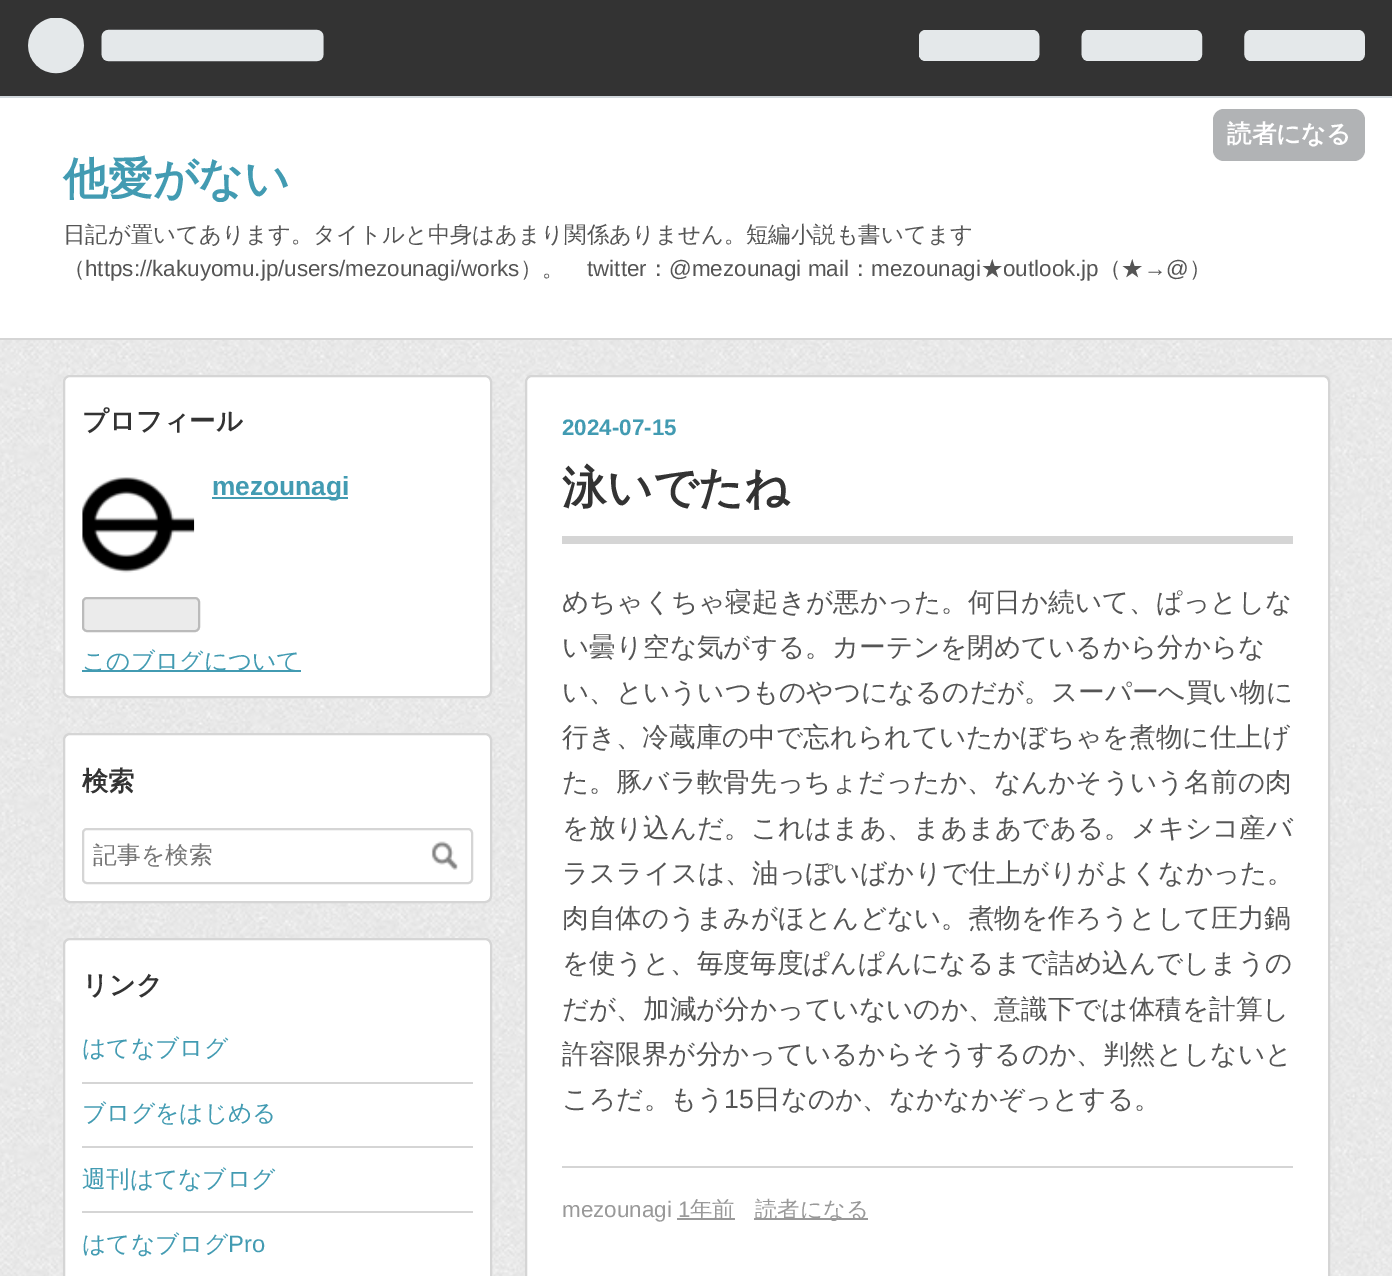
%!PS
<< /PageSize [1392 1276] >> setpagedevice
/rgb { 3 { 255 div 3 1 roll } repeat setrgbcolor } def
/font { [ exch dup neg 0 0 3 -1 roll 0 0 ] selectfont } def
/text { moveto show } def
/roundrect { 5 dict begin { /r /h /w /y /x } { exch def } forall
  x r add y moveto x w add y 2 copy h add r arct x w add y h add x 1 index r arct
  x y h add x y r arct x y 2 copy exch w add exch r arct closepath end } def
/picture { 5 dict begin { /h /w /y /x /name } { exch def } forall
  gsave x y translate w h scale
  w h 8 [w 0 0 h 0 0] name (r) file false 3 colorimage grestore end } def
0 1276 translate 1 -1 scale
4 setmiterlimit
255 255 255 rgb
0 0 1392 1276 rectfill
(img_01.rgb) 0 340 1392 936 picture
51 51 51 rgb
0 0 1392 96 rectfill
210 216 221 rgb
0 96 1392 2 rectfill
(img_02.rgb) 28 18 296 56 picture
(img_03.rgb) 919 30 446 31 picture
177 179 181 rgb
1213 109 152 52 11 roundrect fill
213 213 213 rgb
0 338 1392 2 rectfill
255 255 255 rgb
64 376 427 321 6 roundrect gsave fill grestore
213 213 213 rgb
2 setlinewidth
stroke
(img_04.rgb) 82 477 113 96 picture
66 155 178 rgb
212 497 136 2 rectfill
235 235 235 rgb
83 598 116 33 4 roundrect gsave fill grestore
187 187 187 rgb
stroke
66 155 178 rgb
82 670 219 2 rectfill
255 255 255 rgb
64 734 427 168 6 roundrect gsave fill grestore
213 213 213 rgb
stroke
83 829 389 54 4 roundrect stroke
(img_05.rgb) 431 841 27 29 picture
255 255 255 rgb
65 940 425 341 5 roundrect fill
213 213 213 rgb
64 939 427 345 6 roundrect stroke
82 1082 391 2 rectfill
82 1146 391 2 rectfill
82 1211 391 2 rectfill
255 255 255 rgb
527 376 801 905 5 roundrect fill
213 213 213 rgb
526 376 803 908 6 roundrect stroke
562 536 731 8 rectfill
562 1166 731 2 rectfill
153 153 153 rgb
677 1218 58 2 rectfill
754 1218 114 2 rectfill
/WenQuanYiZenHei-Bold 24.5 font
255 255 255 rgb
(読者になる) 1227 142 text
/WenQuanYiZenHei-Bold 44.75 font
66 155 178 rgb
(他愛がない) 63 194 text
/WenQuanYiZenHei-Medium 22.4 font
85 85 85 rgb
(日記が置いてあります。タイトルと中身はあまり関係ありません。短編小説も書いてます) 63 242 text
(（) 63 276 text
/LiberationSans-Regular 22.4 font
(https://kakuyomu.jp/users/mezounagi/works) 85 276 text
/WenQuanYiZenHei-Medium 22.4 font
(）。) 520 276 text
/LiberationSans-Regular 22.4 font
(twitter) 587 276 text
/WenQuanYiZenHei-Medium 22.4 font
(：) 647 276 text
/LiberationSans-Regular 22.4 font
(@mezounagi mail) 669 276 text
/WenQuanYiZenHei-Medium 22.4 font
(：) 849 276 text
/LiberationSans-Regular 22.4 font
(mezounagi) 871 276 text
/WenQuanYiZenHei-Medium 22.4 font
(★) 981 276 text
/LiberationSans-Regular 22.4 font
(outlook.jp) 1003 276 text
/WenQuanYiZenHei-Medium 22.4 font
(（★) 1099 276 text
/LiberationSans-Regular 22.4 font
(→@) 1144 276 text
/WenQuanYiZenHei-Medium 22.4 font
(）) 1189 276 text
/WenQuanYiZenHei-Bold 26.25 font
51 51 51 rgb
(プロフィール) 82 430 text
/LiberationSans-Bold 26.25 font
66 155 178 rgb
(mezounagi) 212 495 text
/WenQuanYiZenHei-Medium 23.75 font
(このブログについて) 82 669 text
/WenQuanYiZenHei-Bold 26.25 font
51 51 51 rgb
(検索) 82 790 text
/WenQuanYiZenHei-Medium 23.75 font
117 117 117 rgb
(記事を検索) 93 863 text
/WenQuanYiZenHei-Bold 26.25 font
51 51 51 rgb
(リンク) 82 994 text
/WenQuanYiZenHei-Medium 23.75 font
66 155 178 rgb
(はてなブログ) 82 1056 text
(ブログをはじめる) 82 1121 text
(週刊はてなブログ) 82 1187 text
(はてなブログ) 82 1252 text
/LiberationSans-Regular 23.75 font
(Pro) 228 1252 text
/LiberationSans-Bold 22.4 font
(2024-07-15) 562 435 text
/WenQuanYiZenHei-Bold 44.75 font
51 51 51 rgb
(泳いでたね) 562 503 text
/WenQuanYiZenHei-Medium 26.6 font
85 85 85 rgb
(めちゃくちゃ寝起きが悪かった。何日か続いて、ぱっとしな) 562 611 text
(い曇り空な気がする。カーテンを閉めているから分からな) 562 656 text
(い、といういつものやつになるのだが。スーパーへ買い物に) 562 701 text
(行き、冷蔵庫の中で忘れられていたかぼちゃを煮物に仕上げ) 562 746 text
(た。豚バラ軟骨先っちょだったか、なんかそういう名前の肉) 562 791 text
(を放り込んだ。これはまあ、まあまあである。メキシコ産バ) 562 837 text
(ラスライスは、油っぽいばかりで仕上がりがよくなかった。) 562 882 text
(肉自体のうまみがほとんどない。煮物を作ろうとして圧力鍋) 562 927 text
(を使うと、毎度毎度ぱんぱんになるまで詰め込んでしまうの) 562 972 text
(だが、加減が分かっていないのか、意識下では体積を計算し) 562 1018 text
(許容限界が分かっているからそうするのか、判然としないと) 562 1063 text
(ころだ。もう) 562 1108 text
/LiberationSans-Regular 26.6 font
(15) 724 1108 text
/WenQuanYiZenHei-Medium 26.6 font
(日なのか、なかなかぞっとする。) 754 1108 text
/LiberationSans-Regular 22.4 font
153 153 153 rgb
(mezounagi 1) 562 1217 text
/WenQuanYiZenHei-Medium 22.4 font
(年前) 690 1217 text
(読者になる) 755 1217 text
showpage
